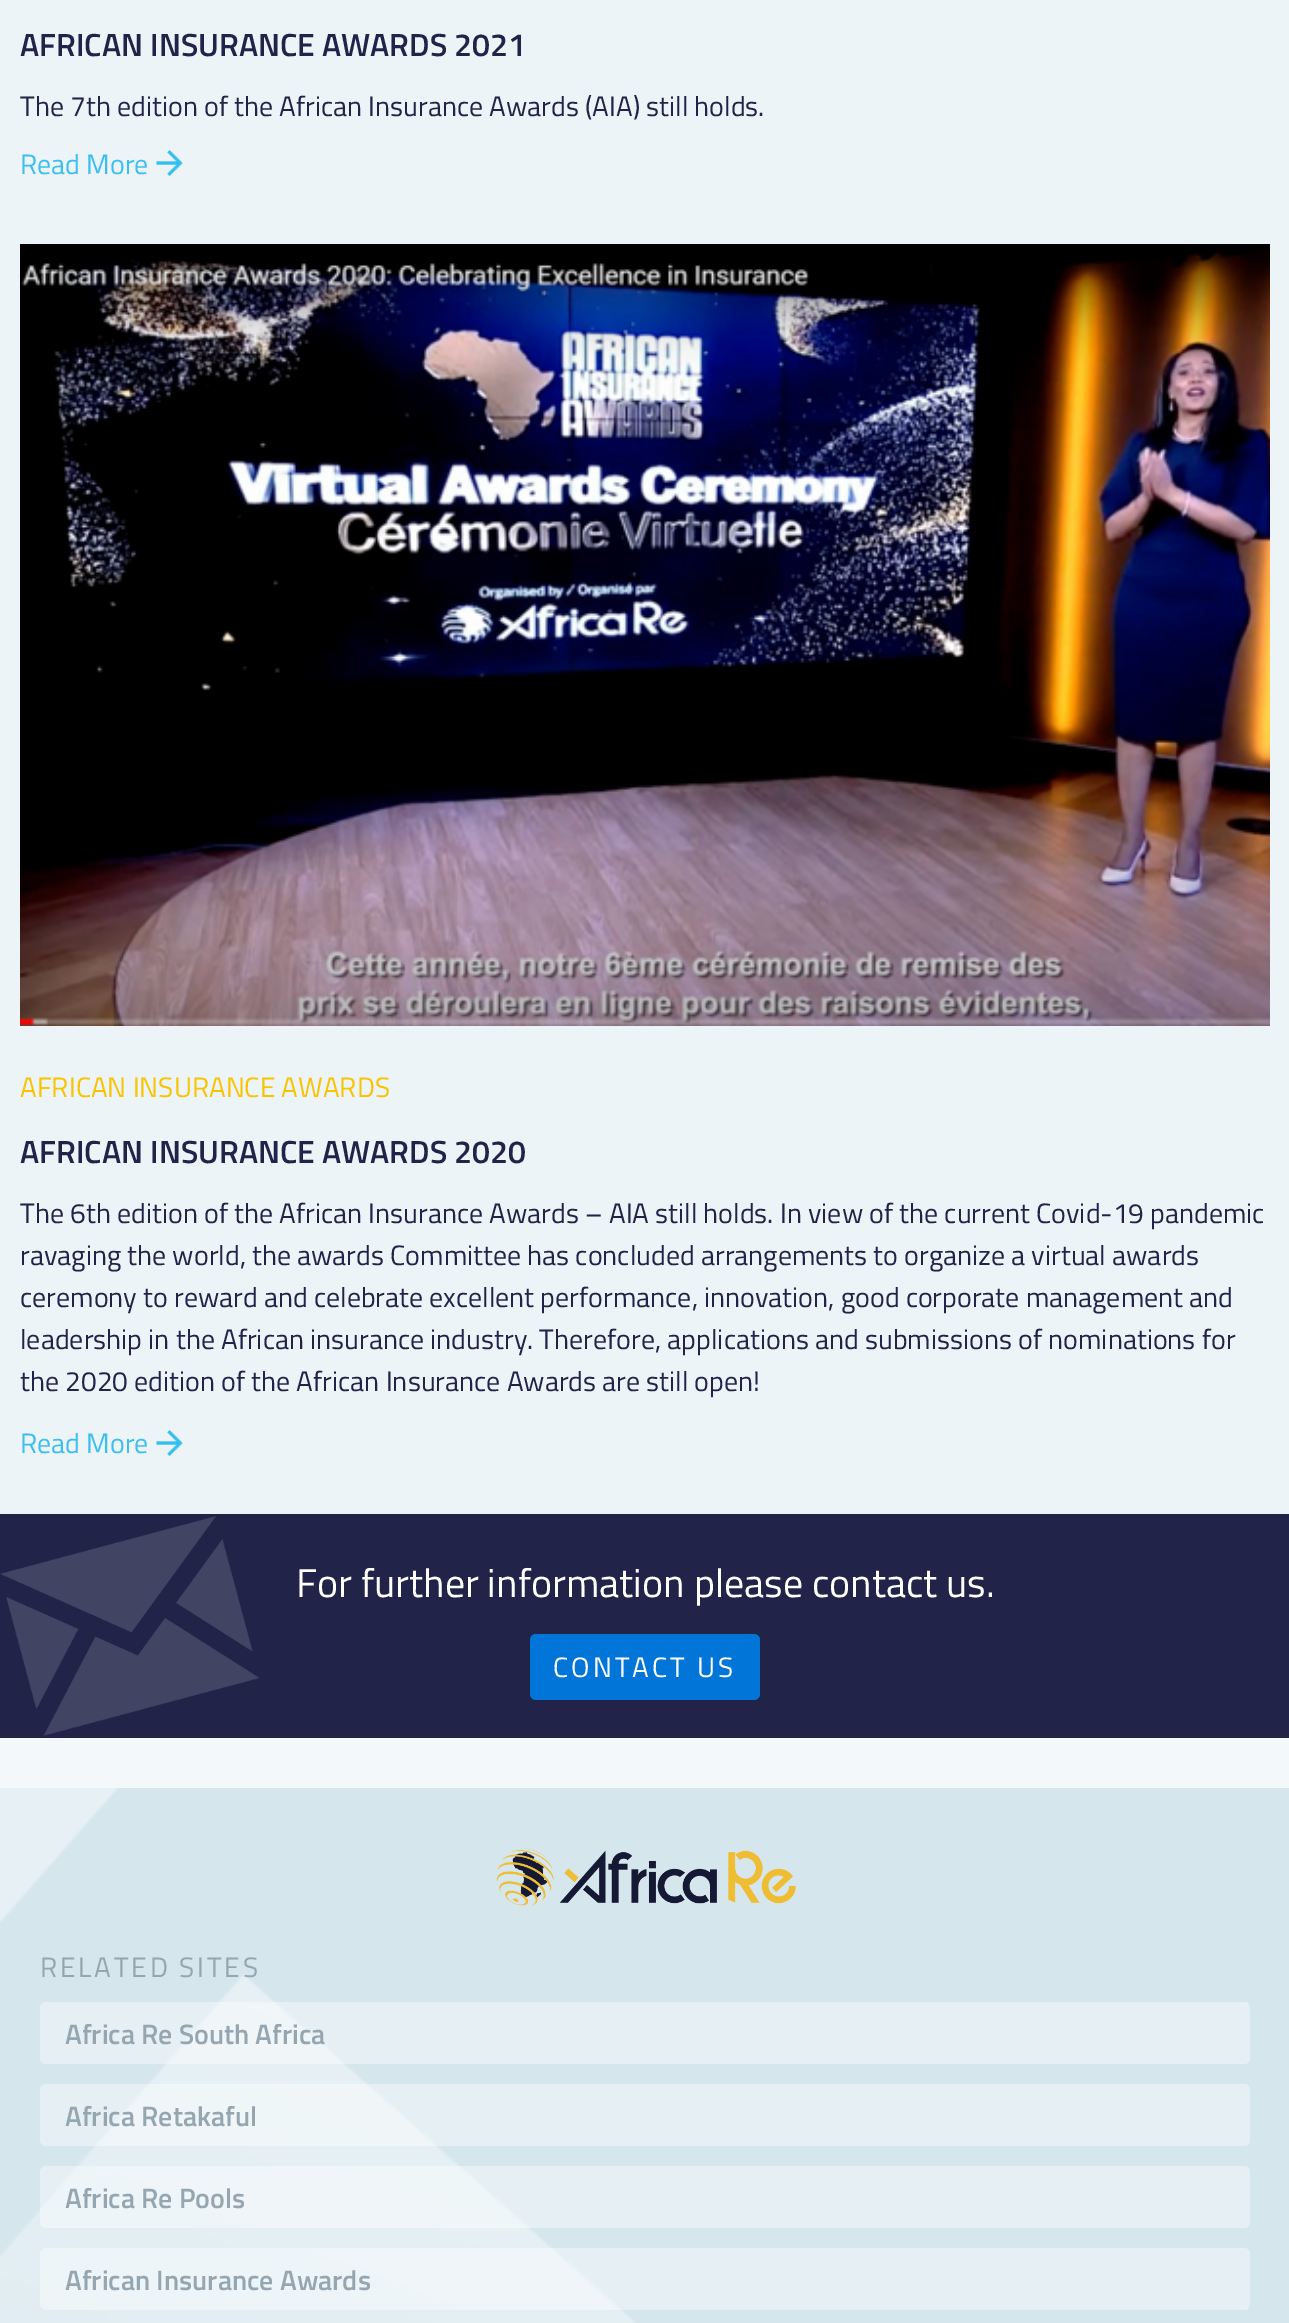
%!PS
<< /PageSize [1289 2323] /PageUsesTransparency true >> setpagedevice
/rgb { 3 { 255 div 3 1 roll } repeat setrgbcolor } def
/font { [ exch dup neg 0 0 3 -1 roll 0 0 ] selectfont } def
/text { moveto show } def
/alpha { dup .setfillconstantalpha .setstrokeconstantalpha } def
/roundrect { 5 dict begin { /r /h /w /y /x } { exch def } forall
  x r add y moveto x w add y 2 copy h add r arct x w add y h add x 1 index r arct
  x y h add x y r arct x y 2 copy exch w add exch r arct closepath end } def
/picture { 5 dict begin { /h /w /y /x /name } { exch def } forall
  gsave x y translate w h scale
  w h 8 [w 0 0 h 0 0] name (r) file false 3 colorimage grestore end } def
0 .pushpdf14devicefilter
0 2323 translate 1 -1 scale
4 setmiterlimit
237 244 247 rgb
0 0 1289 2323 rectfill
(img_01.rgb) 156 150 27 26 picture
(img_02.rgb) 20 244 1250 782 picture
(img_01.rgb) 156 1430 27 26 picture
33 35 73 rgb
0 1514 1289 224 rectfill
(img_03.rgb) 0 1516 259 220 picture
2 117 216 rgb
530 1634 230 66 6 roundrect fill
213 230 237 rgb
0 1788 1289 535 rectfill
(img_04.rgb) 0 1788 637 535 picture
243 248 250 rgb
0 1738 1289 50 rectfill
(img_05.rgb) 496 1848 300 58 picture
0.4 alpha
255 255 255 rgb
40 2002 1210 62 6 roundrect fill
40 2084 1210 62 6 roundrect fill
40 2166 1210 62 6 roundrect fill
40 2248 1210 62 6 roundrect fill
/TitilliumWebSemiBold-SemiBold 32 font
1 alpha
33 35 73 rgb
(AFRICAN INSURANCE AWARDS 2021) 20 56 text
/TitilliumWeb-Regular 28 font
(The 7th edition of the African Insurance Awards \(AIA\) still holds.) 20 116 text
59 190 240 rgb
(Read More) 20 174 text
248 195 0 rgb
(AFRICAN INSURANCE AWARDS) 20 1097 text
/TitilliumWebSemiBold-SemiBold 32 font
33 35 73 rgb
(AFRICAN INSURANCE AWARDS 2020) 20 1163 text
/TitilliumWeb-Regular 28 font
(The 6th edition of the African Insurance Awards – AIA still holds. In view of the current Covid-19 pandemic) 20 1223 text
(ravaging the world, the awards Committee has concluded arrangements to organize a virtual awards) 20 1265 text
(ceremony to reward and celebrate excellent performance, innovation, good corporate management and) 20 1307 text
(leadership in the African insurance industry. Therefore, applications and submissions of nominations for) 20 1349 text
(the 2020 edition of the African Insurance Awards are still open!) 20 1391 text
59 190 240 rgb
(Read More) 20 1453 text
/TitilliumWeb-Regular 40 font
255 255 255 rgb
(For further information please contact us.) 296 1597 text
/TitilliumWeb-Regular 28 font
553 1677 moveto 3 0 (CONTACT US) ashow
149 166 177 rgb
40 1977 moveto 2.75 0 (RELATED SITES) ashow
/TitilliumWebSemiBold-SemiBold 28 font
(Africa Re South Africa) 65 2044 text
(Africa Retakaful) 65 2126 text
(Africa Re Pools) 65 2208 text
(African Insurance Awards) 65 2290 text
.poppdf14devicefilter showpage
